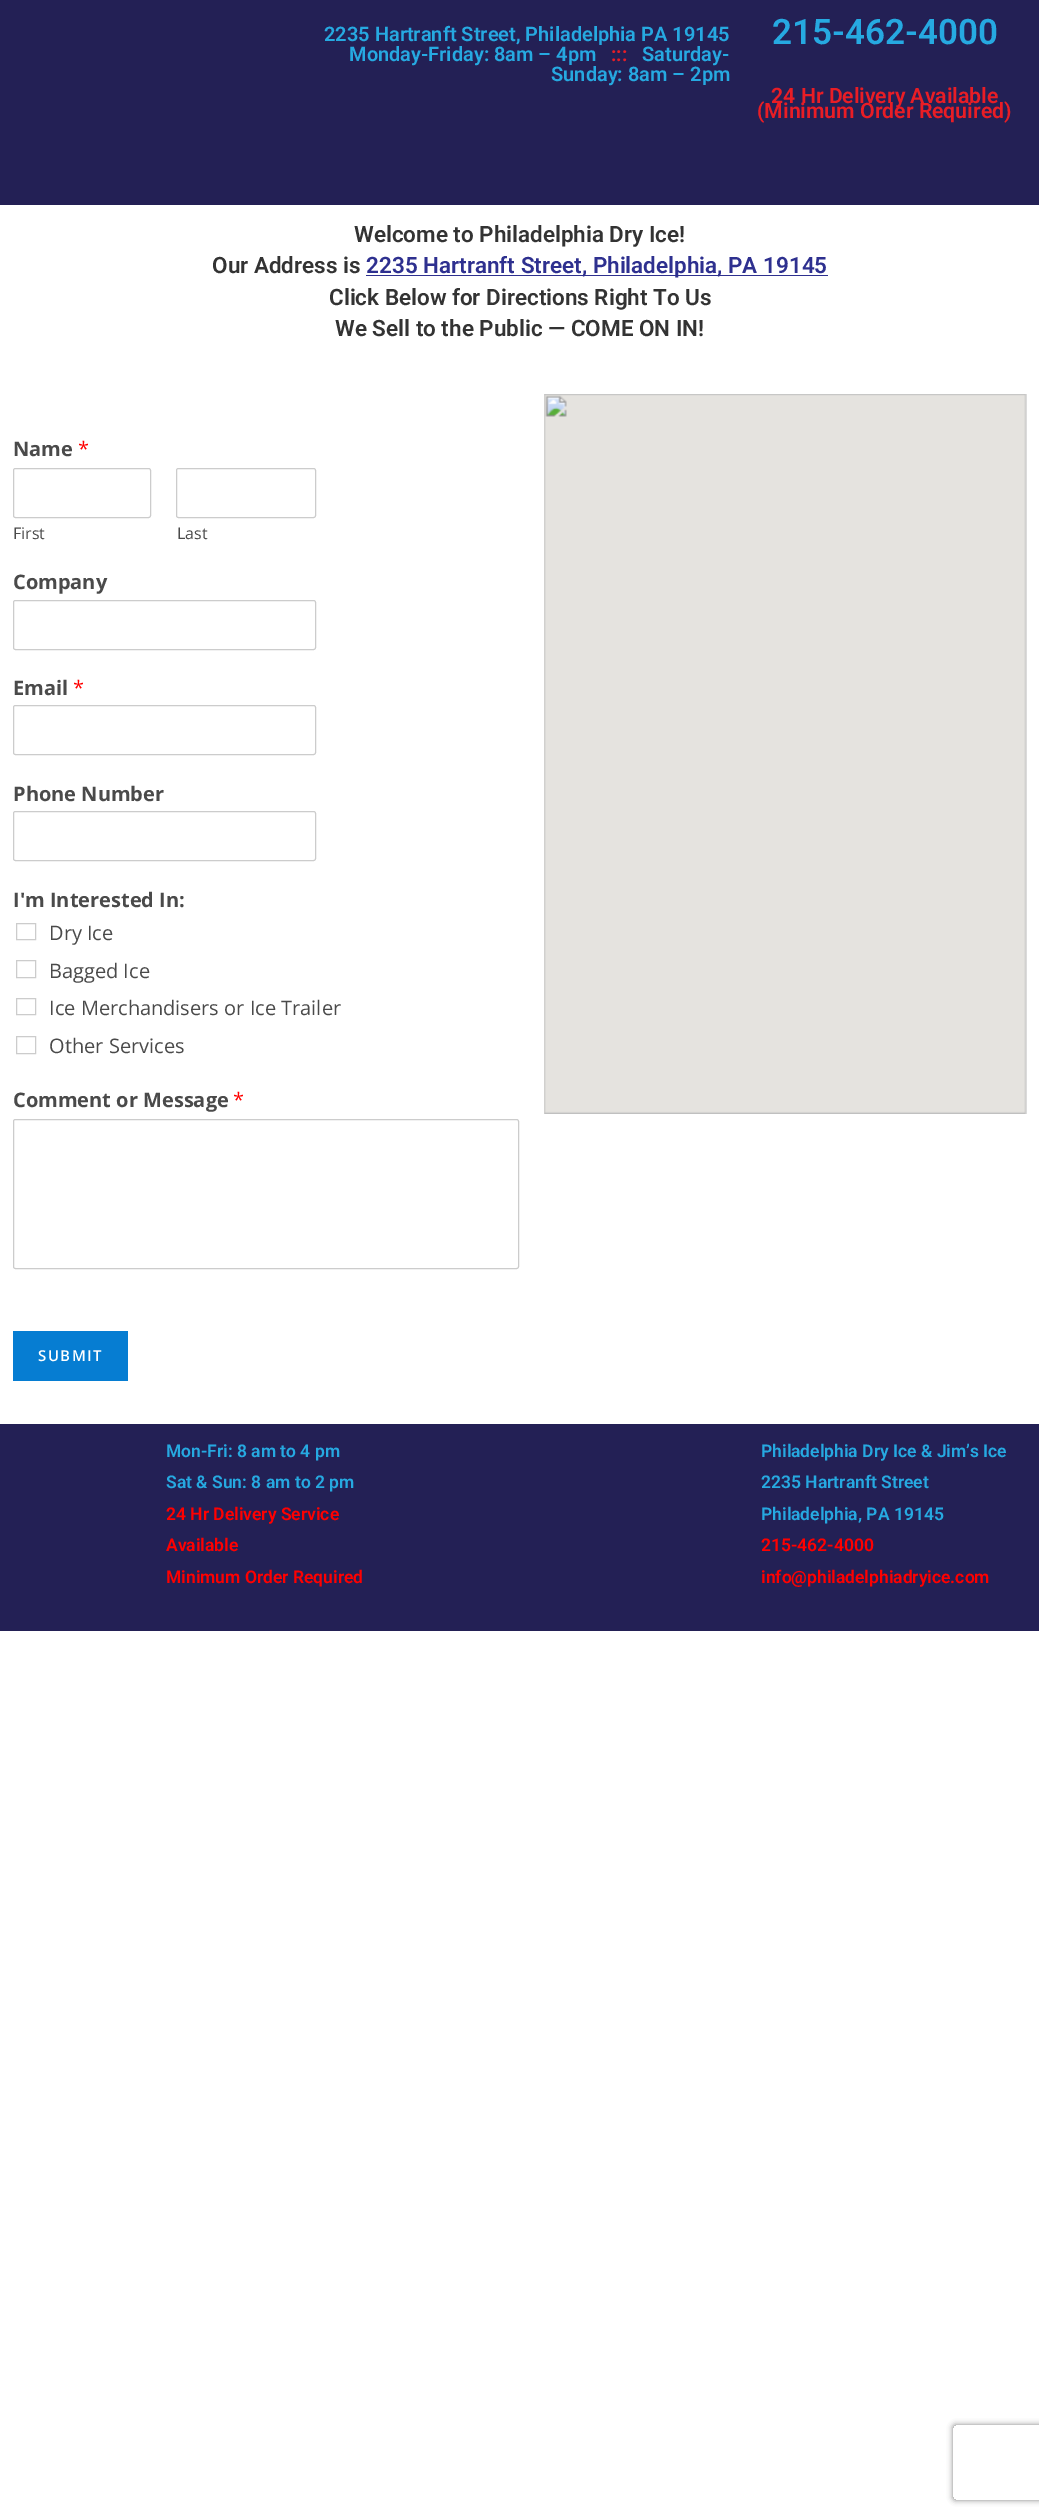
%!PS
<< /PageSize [1039 2517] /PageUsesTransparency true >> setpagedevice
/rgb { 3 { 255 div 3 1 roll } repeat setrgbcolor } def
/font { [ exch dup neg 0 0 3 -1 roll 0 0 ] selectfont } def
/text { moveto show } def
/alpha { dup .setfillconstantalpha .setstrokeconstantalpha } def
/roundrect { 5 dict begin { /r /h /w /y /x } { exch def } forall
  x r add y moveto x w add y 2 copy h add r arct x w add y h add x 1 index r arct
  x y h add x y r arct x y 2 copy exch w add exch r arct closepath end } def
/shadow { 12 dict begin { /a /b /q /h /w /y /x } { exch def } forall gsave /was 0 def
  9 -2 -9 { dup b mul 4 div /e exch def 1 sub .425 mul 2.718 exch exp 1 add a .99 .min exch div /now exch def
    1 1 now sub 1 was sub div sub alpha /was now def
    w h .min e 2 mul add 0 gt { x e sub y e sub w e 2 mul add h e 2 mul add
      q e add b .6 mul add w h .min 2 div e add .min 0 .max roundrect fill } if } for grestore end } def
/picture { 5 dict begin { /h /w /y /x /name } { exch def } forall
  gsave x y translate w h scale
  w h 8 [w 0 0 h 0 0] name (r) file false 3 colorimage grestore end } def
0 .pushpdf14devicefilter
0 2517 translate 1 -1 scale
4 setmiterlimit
255 255 255 rgb
0 0 1039 2517 rectfill
35 32 85 rgb
0 0 1039 205 rectfill
46 48 143 rgb
366 275 462 1 rectfill
204 204 204 rgb
13.5 468.5 137 49 2 roundrect stroke
176.5 468.5 139 49 2 roundrect stroke
13.5 600.5 302 49 2 roundrect stroke
13.5 705.5 302 49 2 roundrect stroke
13.5 811.5 302 49 2 roundrect stroke
16.5 923.5 19 16 rectstroke
16.5 960.5 19 17 rectstroke
16.5 998.5 19 16 rectstroke
16.5 1036.5 19 17 rectstroke
13.5 1119.5 505 149 2 roundrect stroke
6 125 210 rgb
13 1331 115 50 rectfill
(img_01.rgb) 544 394 483 720 picture
35 32 85 rgb
0 1424 1039 207 rectfill
gsave
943 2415 moveto 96 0 rlineto 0 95 rlineto -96 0 rlineto closepath 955.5 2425 moveto 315 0 rlineto 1.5 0 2.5 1 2.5 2.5 rcurveto 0 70 rlineto 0 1.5 -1 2.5 -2.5 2.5 rcurveto -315 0 rlineto -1.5 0 -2.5 -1 -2.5 -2.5 rcurveto 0 -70 rlineto 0 -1.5 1 -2.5 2.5 -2.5 rcurveto closepath eoclip newpath
128 128 128 rgb
953 2425 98 75 2.5 3 1 shadow
grestore
/Roboto-SemiBold 20 font
38 169 225 rgb
(2235 Hartranft Street, Philadelphia PA 19145) 324 41 text
(Monday-Friday: 8am – 4pm) 349 61 text
233 29 37 rgb
(:::) 611 61 text
38 169 225 rgb
(Saturday-) 642 61 text
(Sunday: 8am – 2pm) 551 81 text
/Roboto-SemiBold 35 font
(215-462-4000) 772 44 text
/Roboto-SemiBold 21.25 font
233 29 37 rgb
(24 Hr Delivery Available) 771 103 text
(\(Minimum Order Required\)) 757 118 text
/Roboto-SemiBold 22.5 font
51 51 51 rgb
(Welcome to Philadelphia Dry Ice!) 354 242 text
(Our Address is) 212 273 text
46 48 143 rgb
(2235 Hartranft Street, Philadelphia, PA 19145) 366 273 text
51 51 51 rgb
(Click Below for Directions Right To Us) 329 305 text
(We Sell to the Public — COME ON IN!) 335 336 text
/OpenSans-Bold 20 font
74 74 74 rgb
(Name) 13 456 text
/OpenSans-Regular 20 font
255 0 0 rgb
(*) 78 456 text
/OpenSans-Regular 16 font
74 74 74 rgb
(First) 13 539 text
(Last) 177 539 text
/OpenSans-Bold 20 font
(Company) 13 589 text
(Email) 13 695 text
/OpenSans-Regular 20 font
255 0 0 rgb
(*) 73 695 text
/OpenSans-Bold 20 font
74 74 74 rgb
(Phone Number) 13 801 text
(I'm Interested In:) 13 907 text
/OpenSans-Regular 20 font
(Dry Ice) 49 940 text
(Bagged Ice) 49 978 text
(Ice Merchandisers or Ice Trailer) 49 1015 text
(Other Services) 49 1053 text
/OpenSans-Bold 20 font
(Comment or Message) 13 1107 text
/OpenSans-Regular 20 font
255 0 0 rgb
(*) 233 1107 text
/OpenSans-SemiBold 15 font
255 255 255 rgb
38 1361 moveto 1.5 0 (SUBMIT) ashow
/Roboto-SemiBold 17.5 font
38 169 225 rgb
(Mon-Fri: 8 am to 4 pm) 166 1457 text
(Sat & Sun: 8 am to 2 pm) 166 1488 text
255 0 0 rgb
(24 Hr Delivery Service) 166 1520 text
(Available) 166 1551 text
(Minimum Order Required) 166 1583 text
38 169 225 rgb
(Philadelphia Dry Ice & Jim’s Ice) 761 1457 text
(2235 Hartranft Street) 761 1488 text
(Philadelphia, PA 19145) 761 1520 text
255 0 0 rgb
(215-462-4000) 761 1551 text
(info@philadelphiadryice.com) 761 1583 text
.poppdf14devicefilter showpage
